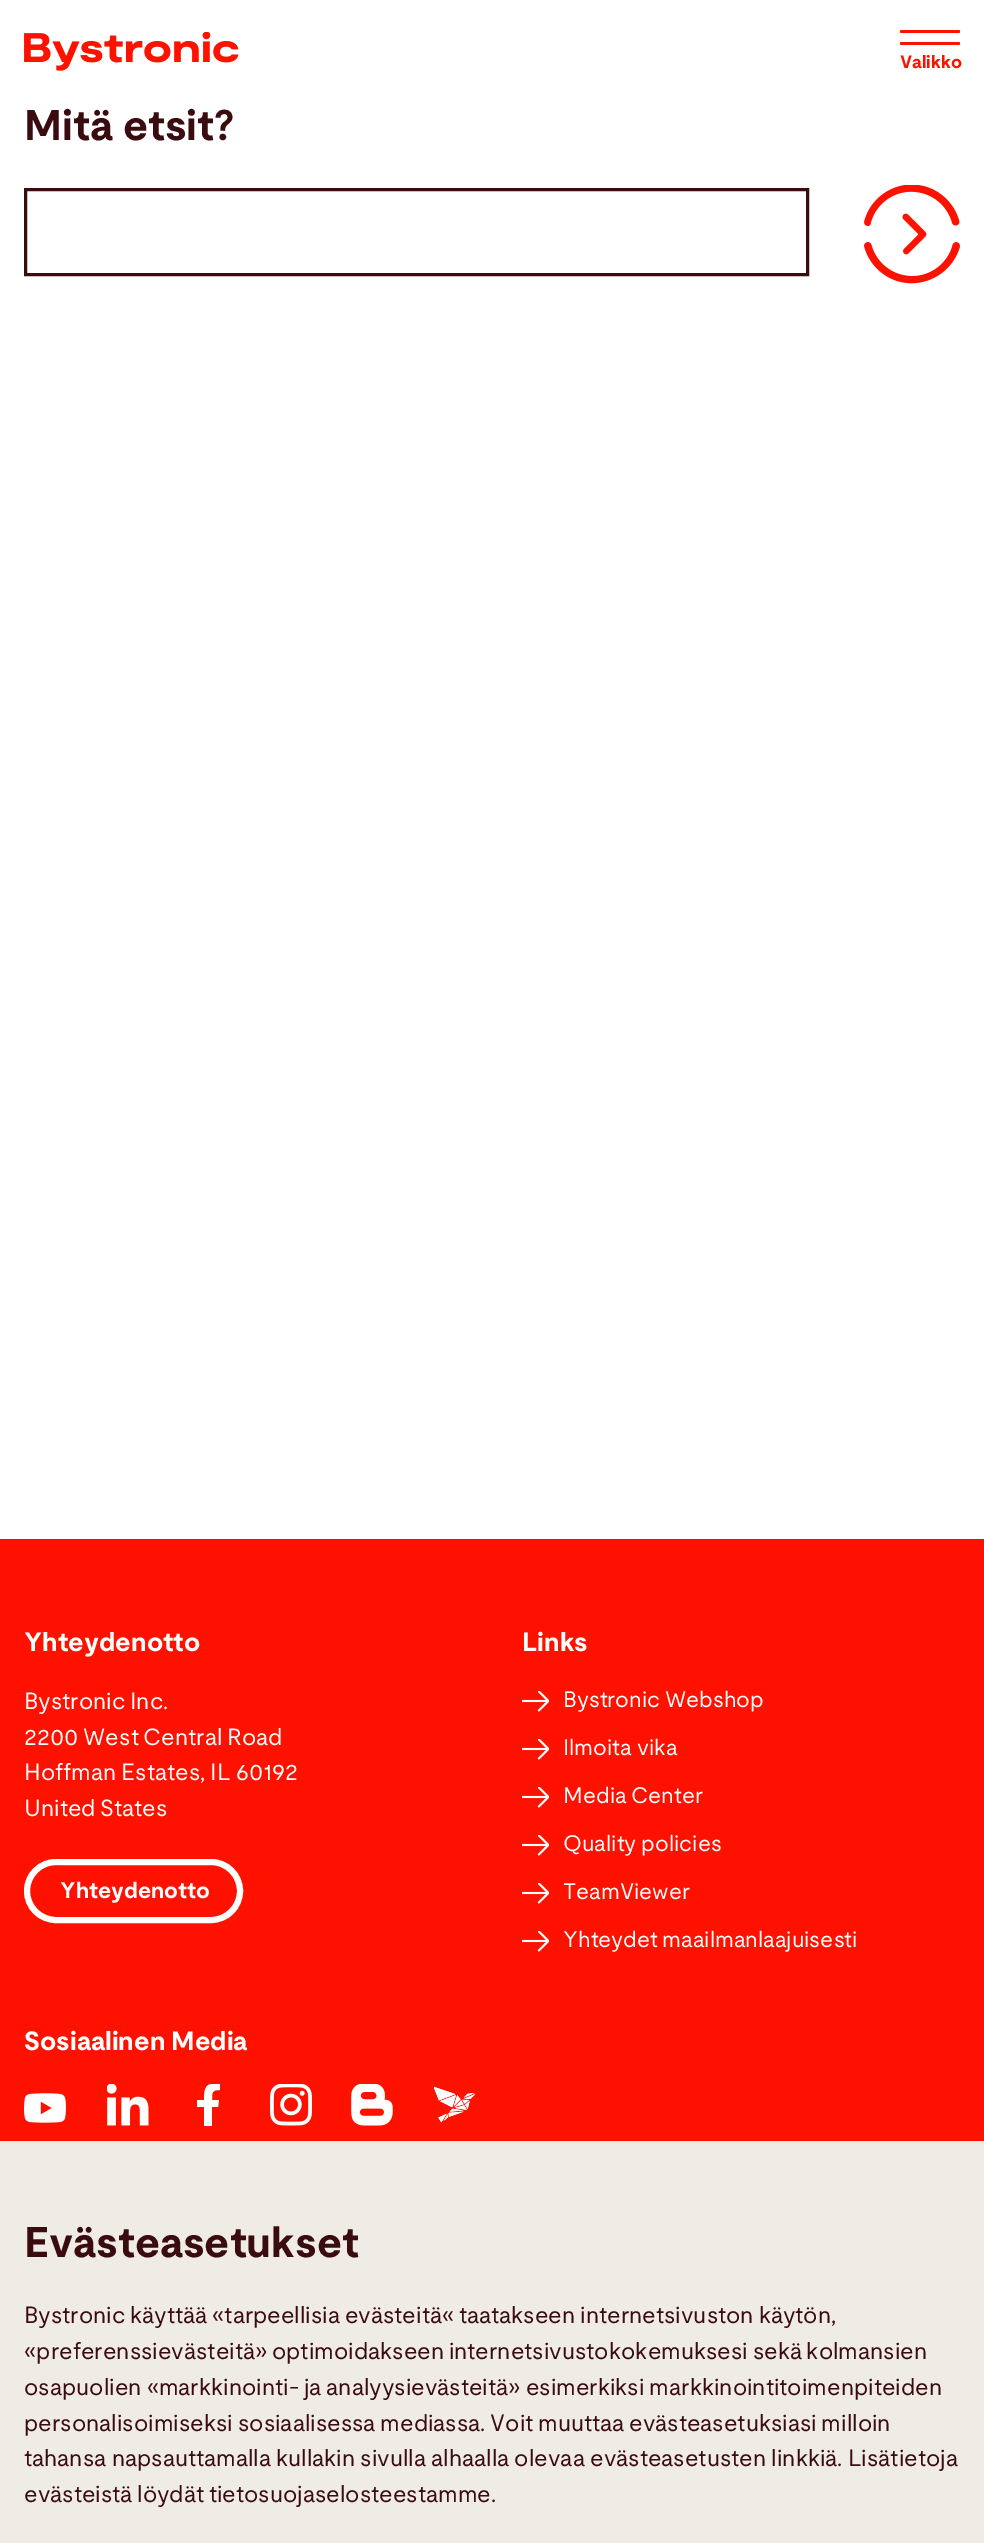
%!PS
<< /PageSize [984 2543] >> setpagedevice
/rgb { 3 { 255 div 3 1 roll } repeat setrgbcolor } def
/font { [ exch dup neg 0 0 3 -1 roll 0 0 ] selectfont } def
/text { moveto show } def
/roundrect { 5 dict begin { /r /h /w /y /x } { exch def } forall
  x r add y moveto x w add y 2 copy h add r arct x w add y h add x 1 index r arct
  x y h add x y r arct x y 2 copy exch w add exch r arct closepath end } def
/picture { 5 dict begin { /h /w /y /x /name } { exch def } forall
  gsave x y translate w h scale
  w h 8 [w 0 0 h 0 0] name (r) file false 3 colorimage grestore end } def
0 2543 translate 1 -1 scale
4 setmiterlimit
255 255 255 rgb
0 0 984 2543 rectfill
(img_01.rgb) 24 32 215 39 picture
255 17 0 rgb
900 30 60 3 1.5 roundrect fill
900 42 60 3 1.5 roundrect fill
58 12 16 rgb
3 setlinewidth
25.5 189.5 782 85 rectstroke
(img_02.rgb) 864 185 96 99 picture
255 17 0 rgb
0 1539 984 602 rectfill
255 255 255 rgb
6 setlinewidth
27 1862 213 58 29 roundrect stroke
(img_03.rgb) 522 1691 27 21 picture
(img_03.rgb) 522 1739 27 21 picture
(img_03.rgb) 522 1787 27 21 picture
(img_03.rgb) 522 1835 27 21 picture
(img_03.rgb) 522 1883 27 21 picture
(img_03.rgb) 522 1931 27 21 picture
(img_04.rgb) 24 2093 42 30 picture
(img_05.rgb) 107 2084 42 42 picture
gsave
188 2084 42 42 rectclip
218 2107 moveto 1 -7 rlineto -7 0 rlineto 0 -8 0 -10 8 -10 rcurveto 0 -6 rlineto -14 -2 -16 3 -16 16 rcurveto -7 0 rlineto 0 7 rlineto 7 0 rlineto 0 19 rlineto 8 0 rlineto 0 -19 rlineto closepath fill
grestore
(img_06.rgb) 270 2084 42 42 picture
(img_07.rgb) 351 2084 42 42 picture
(img_08.rgb) 434 2086 42 37 picture
239 235 229 rgb
0 2141 984 402 rectfill
/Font-Bold 18 font
255 17 0 rgb
(Valikko) 900 68 text
/Font-Bold 42.75 font
58 12 16 rgb
24 140 moveto -1 0 32 (Mitä etsit?) widthshow
/Font-Bold 26.5 font
255 255 255 rgb
(Yhteydenotto) 24 1651 text
/Font-Regular 23.45 font
24 1709 moveto -1.5 0 32 (Bystronic Inc.) widthshow
24 1745 moveto -1.5 0 32 (2200 West Central Road) widthshow
24 1780 moveto -1 0 32 (Hoffman Estates, IL 60192) widthshow
24 1816 moveto -1.5 0 32 (United States) widthshow
/Font-Bold 22.5 font
(Yhteydenotto) 60 1898 text
/Font-Bold 26.5 font
(Links) 522 1651 text
/Font-Regular 22.5 font
563 1707 moveto -1.5 0 32 (Bystronic Webshop) widthshow
563 1755 moveto -1 0 32 (Ilmoita vika) widthshow
563 1803 moveto -1.5 0 32 (Media Center) widthshow
563 1851 moveto -1 0 32 (Quality policies) widthshow
(TeamViewer) 563 1899 text
563 1947 moveto -1.5 0 32 (Yhteydet maailmanlaajuisesti) widthshow
/Font-Bold 26.5 font
24 2050 moveto -1 0 32 (Sosiaalinen Media) widthshow
/Font-Bold 42.75 font
58 12 16 rgb
(Evästeasetukset) 24 2257 text
/Font-Regular 23.45 font
24 2323 moveto -1.25 0 32 (Bystronic käyttää «tarpeellisia evästeitä« taatakseen internetsivuston käytön,) widthshow
24 2359 moveto -1.5 0 32 («preferenssievästeitä» optimoidakseen internetsivustokokemuksesi sekä kolmansien) widthshow
24 2395 moveto -1 0 32 (osapuolien «markkinointi- ja analyysievästeitä» esimerkiksi markkinointitoimenpiteiden) widthshow
24 2431 moveto -1.25 0 32 (personalisoimiseksi sosiaalisessa mediassa. Voit muuttaa evästeasetuksiasi milloin) widthshow
24 2466 moveto -0.75 0 32 (tahansa napsauttamalla kullakin sivulla alhaalla olevaa evästeasetusten linkkiä. Lisätietoja) widthshow
24 2502 moveto -1.5 0 32 (evästeistä löydät tietosuojaselosteestamme.) widthshow
showpage
